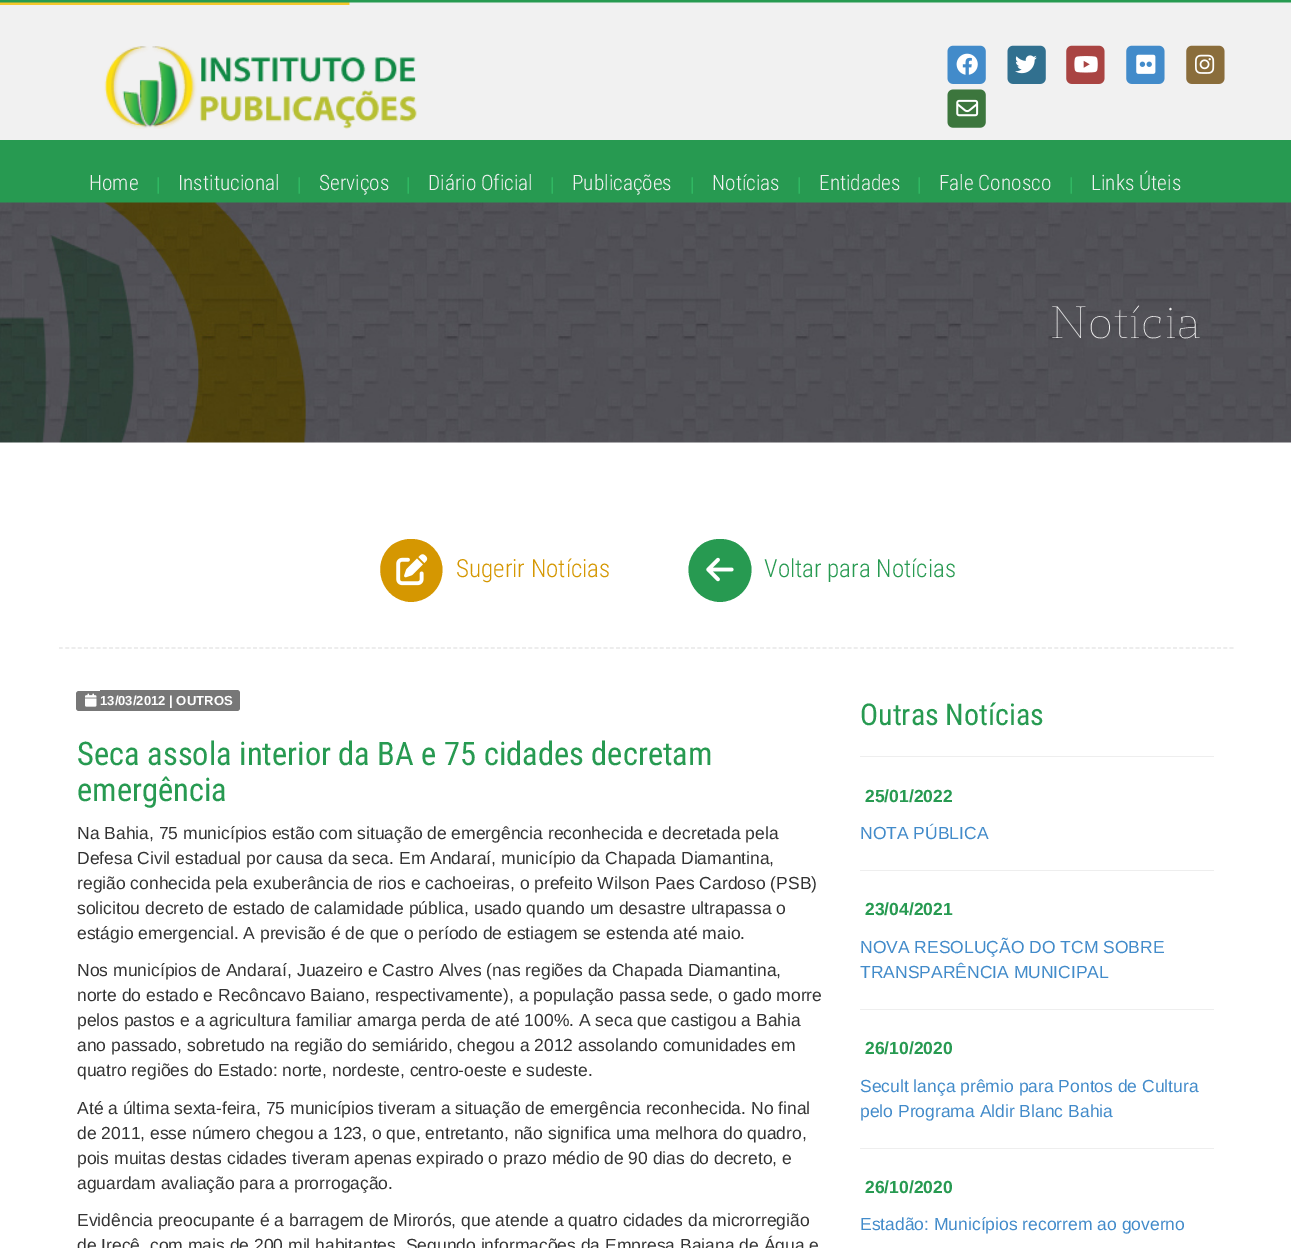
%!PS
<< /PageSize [1291 1248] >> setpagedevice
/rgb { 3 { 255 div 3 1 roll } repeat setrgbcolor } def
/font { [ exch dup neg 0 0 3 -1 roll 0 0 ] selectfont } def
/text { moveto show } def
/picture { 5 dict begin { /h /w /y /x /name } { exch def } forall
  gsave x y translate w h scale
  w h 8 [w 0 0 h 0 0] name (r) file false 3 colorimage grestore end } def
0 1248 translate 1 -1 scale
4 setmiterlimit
255 255 255 rgb
0 0 1291 1248 rectfill
(img_01.rgb) 0 0 1291 5 picture
241 241 241 rgb
0 5 1291 135 rectfill
(img_02.rgb) 104 46 313 83 picture
(img_03.rgb) 947 45 39 39 picture
(img_04.rgb) 956 53 22 22 picture
(img_05.rgb) 1007 45 39 39 picture
(img_06.rgb) 1015 55 22 19 picture
(img_07.rgb) 1066 45 39 39 picture
(img_08.rgb) 1074 56 24 17 picture
(img_09.rgb) 1126 45 39 39 picture
(img_10.rgb) 1136 54 20 20 picture
(img_11.rgb) 1186 45 39 39 picture
(img_12.rgb) 1195 54 20 20 picture
(img_13.rgb) 947 89 39 39 picture
(img_14.rgb) 956 99 23 18 picture
39 154 81 rgb
0 140 1291 63 rectfill
(img_15.rgb) 0 202 1291 241 picture
231 231 231 rgb
1.2 setlinewidth
[3.75 2.51] 0 setdash
59 648 moveto 1175 0 rlineto stroke
213 151 1 rgb
411 602 moveto 30 -1 43 -38 19 -57 rcurveto -5 -4 -12 -6 -19 -6 rcurveto -7 0 -13 2 -19 6 rcurveto -23 19 -10 56 19 57 rcurveto closepath fill
(img_16.rgb) 396 554 32 32 picture
39 154 81 rgb
720 602 moveto 30 -1 43 -38 19 -57 rcurveto -5 -4 -12 -6 -19 -6 rcurveto -7 0 -14 2 -19 6 rcurveto -24 19 -11 56 19 57 rcurveto closepath fill
(img_17.rgb) 706 557 28 25 picture
119 119 119 rgb
79 691 moveto 21 0 rlineto 0 20 rlineto -21 0 rlineto -1.5 0 -3 -1.5 -3 -3 rcurveto 0 -14 rlineto 0 -1.5 1.5 -3 3 -3 rcurveto closepath fill
100 690 moveto 137 0 rlineto 1.5 0 3 1.5 3 3 rcurveto 0 15 rlineto 0 1.5 -1.5 3 -3 3 rcurveto -137 0 rlineto closepath fill
(img_18.rgb) 85 693 12 14 picture
238 238 238 rgb
860 756 354 1 rectfill
860 870 354 1 rectfill
860 1009 354 1 rectfill
860 1148 354 1 rectfill
/RobotoCondensed-Light 21.25 font
241 241 241 rgb
(Home) 89 190 text
/LiberationSans-Regular 17.5 font
48 184 98 rgb
(|) 156 190 text
/RobotoCondensed-Light 21.25 font
241 241 241 rgb
(Institucional) 178 190 text
/LiberationSans-Regular 17.5 font
48 184 98 rgb
(|) 297 190 text
/RobotoCondensed-Light 21.25 font
241 241 241 rgb
(Serviços) 319 190 text
/LiberationSans-Regular 17.5 font
48 184 98 rgb
(|) 406 190 text
/RobotoCondensed-Light 21.25 font
241 241 241 rgb
(Diário Oficial) 428 190 text
/LiberationSans-Regular 17.5 font
48 184 98 rgb
(|) 550 190 text
/RobotoCondensed-Light 21.25 font
241 241 241 rgb
(Publicações) 572 190 text
/LiberationSans-Regular 17.5 font
48 184 98 rgb
(|) 690 190 text
/RobotoCondensed-Light 21.25 font
241 241 241 rgb
(Notícias) 712 190 text
/LiberationSans-Regular 17.5 font
48 184 98 rgb
(|) 797 190 text
/RobotoCondensed-Light 21.25 font
241 241 241 rgb
(Entidades) 819 190 text
/LiberationSans-Regular 17.5 font
48 184 98 rgb
(|) 917 190 text
/RobotoCondensed-Light 21.25 font
241 241 241 rgb
(Fale Conosco) 939 190 text
/LiberationSans-Regular 17.5 font
48 184 98 rgb
(|) 1069 190 text
/RobotoCondensed-Light 21.25 font
241 241 241 rgb
(Links Úteis) 1091 190 text
/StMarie-Thin 45 font
(Notícia) 1049 338 text
/RobotoCondensed-Light 25 font
213 151 1 rgb
(Sugerir Notícias) 456 577 text
39 154 81 rgb
(Voltar para Notícias) 764 577 text
/LiberationSans-Bold 13.1 font
255 255 255 rgb
(13/03/2012 | OUTROS) 100 705 text
/RobotoCondensed-Regular 32.5 font
39 154 81 rgb
(Seca assola interior da BA e 75 cidades decretam) 77 765 text
(emergência) 77 801 text
/LiberationSans-Regular 17.5 font
51 51 51 rgb
(Na Bahia, 75 municípios estão com situação de emergência reconhecida e decretada pela) 77 839 text
(Defesa Civil estadual por causa da seca. Em Andaraí, município da Chapada Diamantina,) 77 864 text
(região conhecida pela exuberância de rios e cachoeiras, o prefeito Wilson Paes Cardoso \(PSB\)) 77 889 text
(solicitou decreto de estado de calamidade pública, usado quando um desastre ultrapassa o) 77 914 text
(estágio emergencial. A previsão é de que o período de estiagem se estenda até maio.) 77 939 text
(Nos municípios de Andaraí, Juazeiro e Castro Alves \(nas regiões da Chapada Diamantina,) 77 976 text
(norte do estado e Recôncavo Baiano, respectivamente\), a população passa sede, o gado morre) 77 1001 text
(pelos pastos e a agricultura familiar amarga perda de até 100%. A seca que castigou a Bahia) 77 1026 text
(ano passado, sobretudo na região do semiárido, chegou a 2012 assolando comunidades em) 77 1051 text
(quatro regiões do Estado: norte, nordeste, centro-oeste e sudeste.) 77 1076 text
(Até a última sexta-feira, 75 municípios tiveram a situação de emergência reconhecida. No final) 77 1114 text
(de 2011, esse número chegou a 123, o que, entretanto, não significa uma melhora do quadro,) 77 1139 text
(pois muitas destas cidades tiveram apenas expirado o prazo médio de 90 dias do decreto, e) 77 1164 text
(aguardam avaliação para a prorrogação.) 77 1189 text
(Evidência preocupante é a barragem de Mirorós, que atende a quatro cidades da microrregião) 77 1226 text
(de Irecê, com mais de 200 mil habitantes. Segundo informações da Empresa Baiana de Água e) 77 1251 text
/RobotoCondensed-Regular 30 font
39 154 81 rgb
(Outras Notícias) 860 725 text
/LiberationSans-Bold 17.5 font
(25/01/2022) 865 802 text
/LiberationSans-Regular 17.5 font
66 139 202 rgb
(NOTA PÚBLICA) 860 839 text
/LiberationSans-Bold 17.5 font
39 154 81 rgb
(23/04/2021) 865 915 text
/LiberationSans-Regular 17.5 font
66 139 202 rgb
(NOVA RESOLUÇÃO DO TCM SOBRE) 860 953 text
(TRANSPARÊNCIA MUNICIPAL) 860 978 text
/LiberationSans-Bold 17.5 font
39 154 81 rgb
(26/10/2020) 865 1054 text
/LiberationSans-Regular 17.5 font
66 139 202 rgb
(Secult lança prêmio para Pontos de Cultura) 860 1092 text
(pelo Programa Aldir Blanc Bahia) 860 1117 text
/LiberationSans-Bold 17.5 font
39 154 81 rgb
(26/10/2020) 865 1193 text
/LiberationSans-Regular 17.5 font
66 139 202 rgb
(Estadão: Municípios recorrem ao governo) 860 1230 text
showpage
